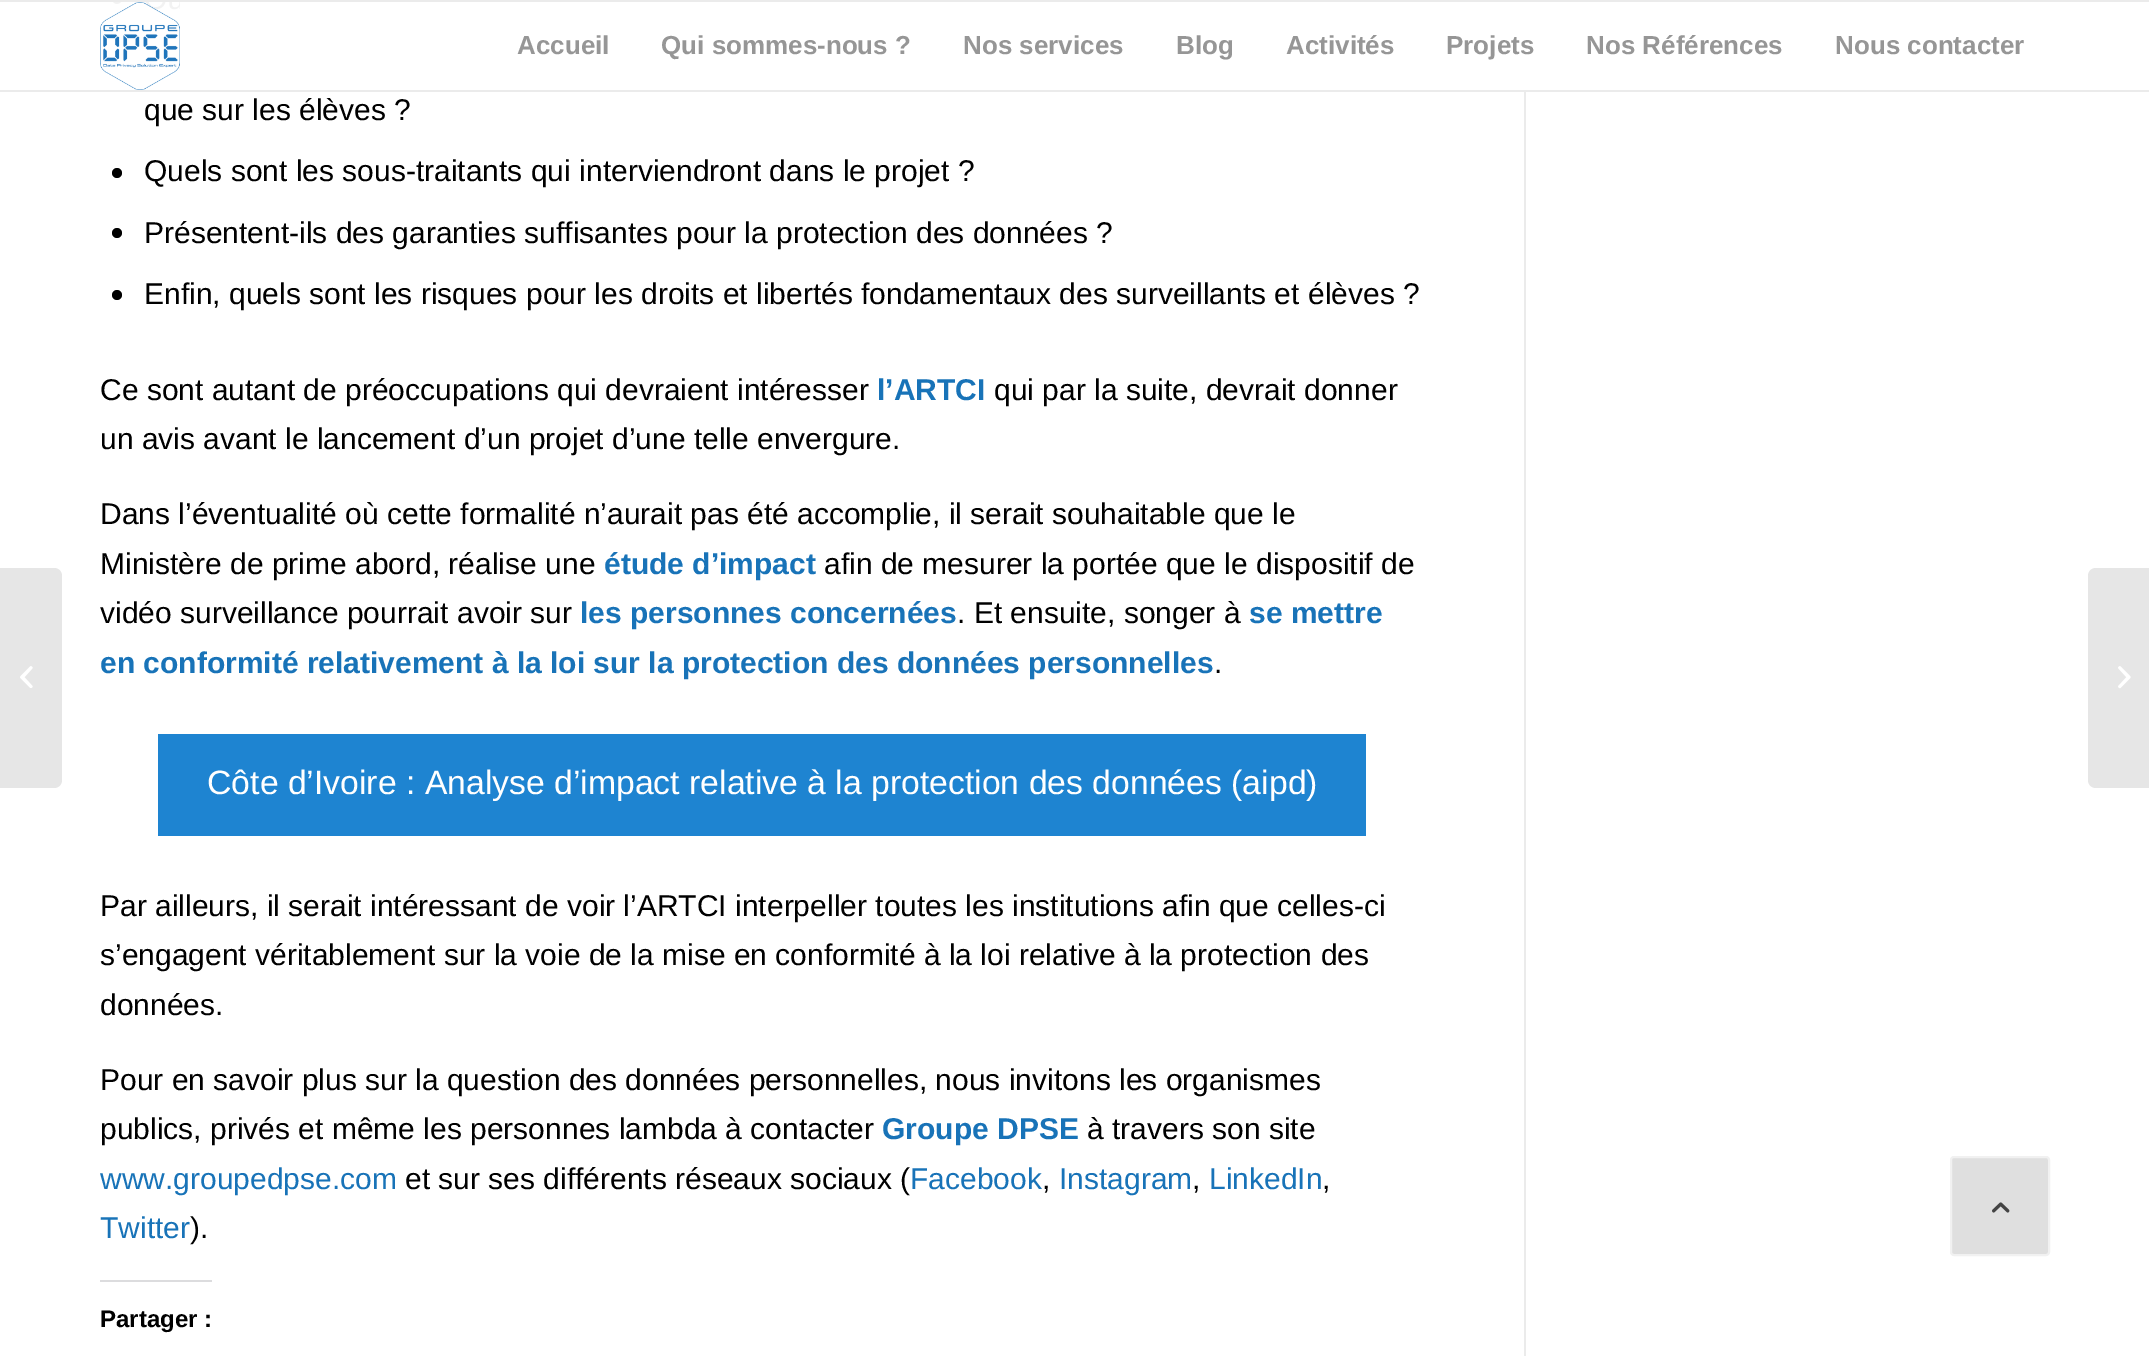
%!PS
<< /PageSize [2149 1356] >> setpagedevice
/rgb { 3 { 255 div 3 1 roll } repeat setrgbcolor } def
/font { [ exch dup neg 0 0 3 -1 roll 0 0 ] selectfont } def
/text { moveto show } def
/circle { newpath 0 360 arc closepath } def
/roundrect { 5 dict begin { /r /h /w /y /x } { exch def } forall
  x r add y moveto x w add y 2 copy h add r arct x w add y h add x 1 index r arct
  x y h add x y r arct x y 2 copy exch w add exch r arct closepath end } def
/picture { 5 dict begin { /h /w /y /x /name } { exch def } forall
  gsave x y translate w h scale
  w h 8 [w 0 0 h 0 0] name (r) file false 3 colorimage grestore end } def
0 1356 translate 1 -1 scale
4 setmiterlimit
255 255 255 rgb
0 0 2149 1356 rectfill
242 242 242 rgb
112 -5 10 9 5 roundrect fill
235 235 235 rgb
0 0 2149 2 rectfill
0 90 2149 2 rectfill
(img_01.rgb) 100 2 80 88 picture
230 230 230 rgb
0 568 moveto 54 0 rlineto 4.5 0 8 3.5 8 8 rcurveto 0 204 rlineto 0 4.5 -3.5 8 -8 8 rcurveto -54 0 rlineto closepath fill
(img_02.rgb) 20 666 13 22 picture
235 235 235 rgb
1524 92 2 1264 rectfill
0 0 0 rgb
117 173 5 circle fill
117 233 5 circle fill
117 295 5 circle fill
30 132 209 rgb
158 734 1208 102 rectfill
220 220 222 rgb
100 1280 112 2 rectfill
230 230 230 rgb
2096 568 moveto 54 0 rlineto 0 220 rlineto -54 0 rlineto -4.5 0 -8 -3.5 -8 -8 rcurveto 0 -204 rlineto 0 -4.5 3.5 -8 8 -8 rcurveto closepath fill
(img_03.rgb) 2118 666 13 23 picture
223 223 223 rgb
1951 1157 98 98 3 roundrect gsave fill grestore
241 241 241 rgb
2 setlinewidth
stroke
(img_04.rgb) 1992 1202 18 11 picture
/LiberationSans-Bold 26 font
150 150 150 rgb
(Accueil) 517 54 text
(Qui sommes-nous ?) 661 54 text
(Nos services) 963 54 text
(Blog) 1176 54 text
(Activités) 1286 54 text
(Projets) 1446 54 text
(Nos Références) 1586 54 text
(Nous contacter) 1835 54 text
/LiberationSans-Regular 30 font
0 0 0 rgb
(que sur les élèves ?) 144 120 text
(Quels sont les sous-traitants qui interviendront dans le projet ?) 144 181 text
(Présentent-ils des garanties suffisantes pour la protection des données ?) 144 243 text
(Enfin, quels sont les risques pour les droits et libertés fondamentaux des surveillants et élèves ?) 144 304 text
(Ce sont autant de préoccupations qui devraient intéresser) 100 400 text
/LiberationSans-Bold 30 font
24 115 184 rgb
(l’ARTCI) 877 400 text
/LiberationSans-Regular 30 font
0 0 0 rgb
(qui par la suite, devrait donner) 994 400 text
(un avis avant le lancement d’un projet d’une telle envergure.) 100 449 text
(Dans l’éventualité où cette formalité n’aurait pas été accomplie, il serait souhaitable que le) 100 524 text
(Ministère de prime abord, réalise une) 100 574 text
/LiberationSans-Bold 30 font
24 115 184 rgb
(étude d’impact) 604 574 text
/LiberationSans-Regular 30 font
0 0 0 rgb
(afin de mesurer la portée que le dispositif de) 824 574 text
(vidéo surveillance pourrait avoir sur) 100 623 text
/LiberationSans-Bold 30 font
24 115 184 rgb
(les personnes concernées) 580 623 text
/LiberationSans-Regular 30 font
0 0 0 rgb
(. Et ensuite, songer à) 957 623 text
/LiberationSans-Bold 30 font
24 115 184 rgb
(se mettre) 1249 623 text
(en conformité relativement à la loi sur la protection des données personnelles) 100 673 text
/LiberationSans-Regular 30 font
0 0 0 rgb
(.) 1214 673 text
/LiberationSans-Regular 33.75 font
255 255 255 rgb
(Côte d’Ivoire : Analyse d’impact relative à la protection des données \(aipd\)) 207 794 text
/LiberationSans-Regular 30 font
0 0 0 rgb
(Par ailleurs, il serait intéressant de voir l’ARTCI interpeller toutes les institutions afin que celles-ci) 100 916 text
(s’engagent véritablement sur la voie de la mise en conformité à la loi relative à la protection des) 100 965 text
(données.) 100 1015 text
(Pour en savoir plus sur la question des données personnelles, nous invitons les organismes) 100 1090 text
(publics, privés et même les personnes lambda à contacter) 100 1139 text
/LiberationSans-Bold 30 font
24 115 184 rgb
(Groupe DPSE) 882 1139 text
/LiberationSans-Regular 30 font
0 0 0 rgb
(à travers son site) 1087 1139 text
24 115 184 rgb
(www.groupedpse.com) 100 1189 text
0 0 0 rgb
(et sur ses différents réseaux sociaux \() 405 1189 text
24 115 184 rgb
(Facebook) 910 1189 text
0 0 0 rgb
(,) 1042 1189 text
24 115 184 rgb
(Instagram) 1059 1189 text
0 0 0 rgb
(,) 1192 1189 text
24 115 184 rgb
(LinkedIn) 1209 1189 text
0 0 0 rgb
(,) 1322 1189 text
24 115 184 rgb
(Twitter) 100 1238 text
0 0 0 rgb
(\).) 190 1238 text
/LiberationSans-Bold 24 font
(Partager :) 100 1327 text
showpage
